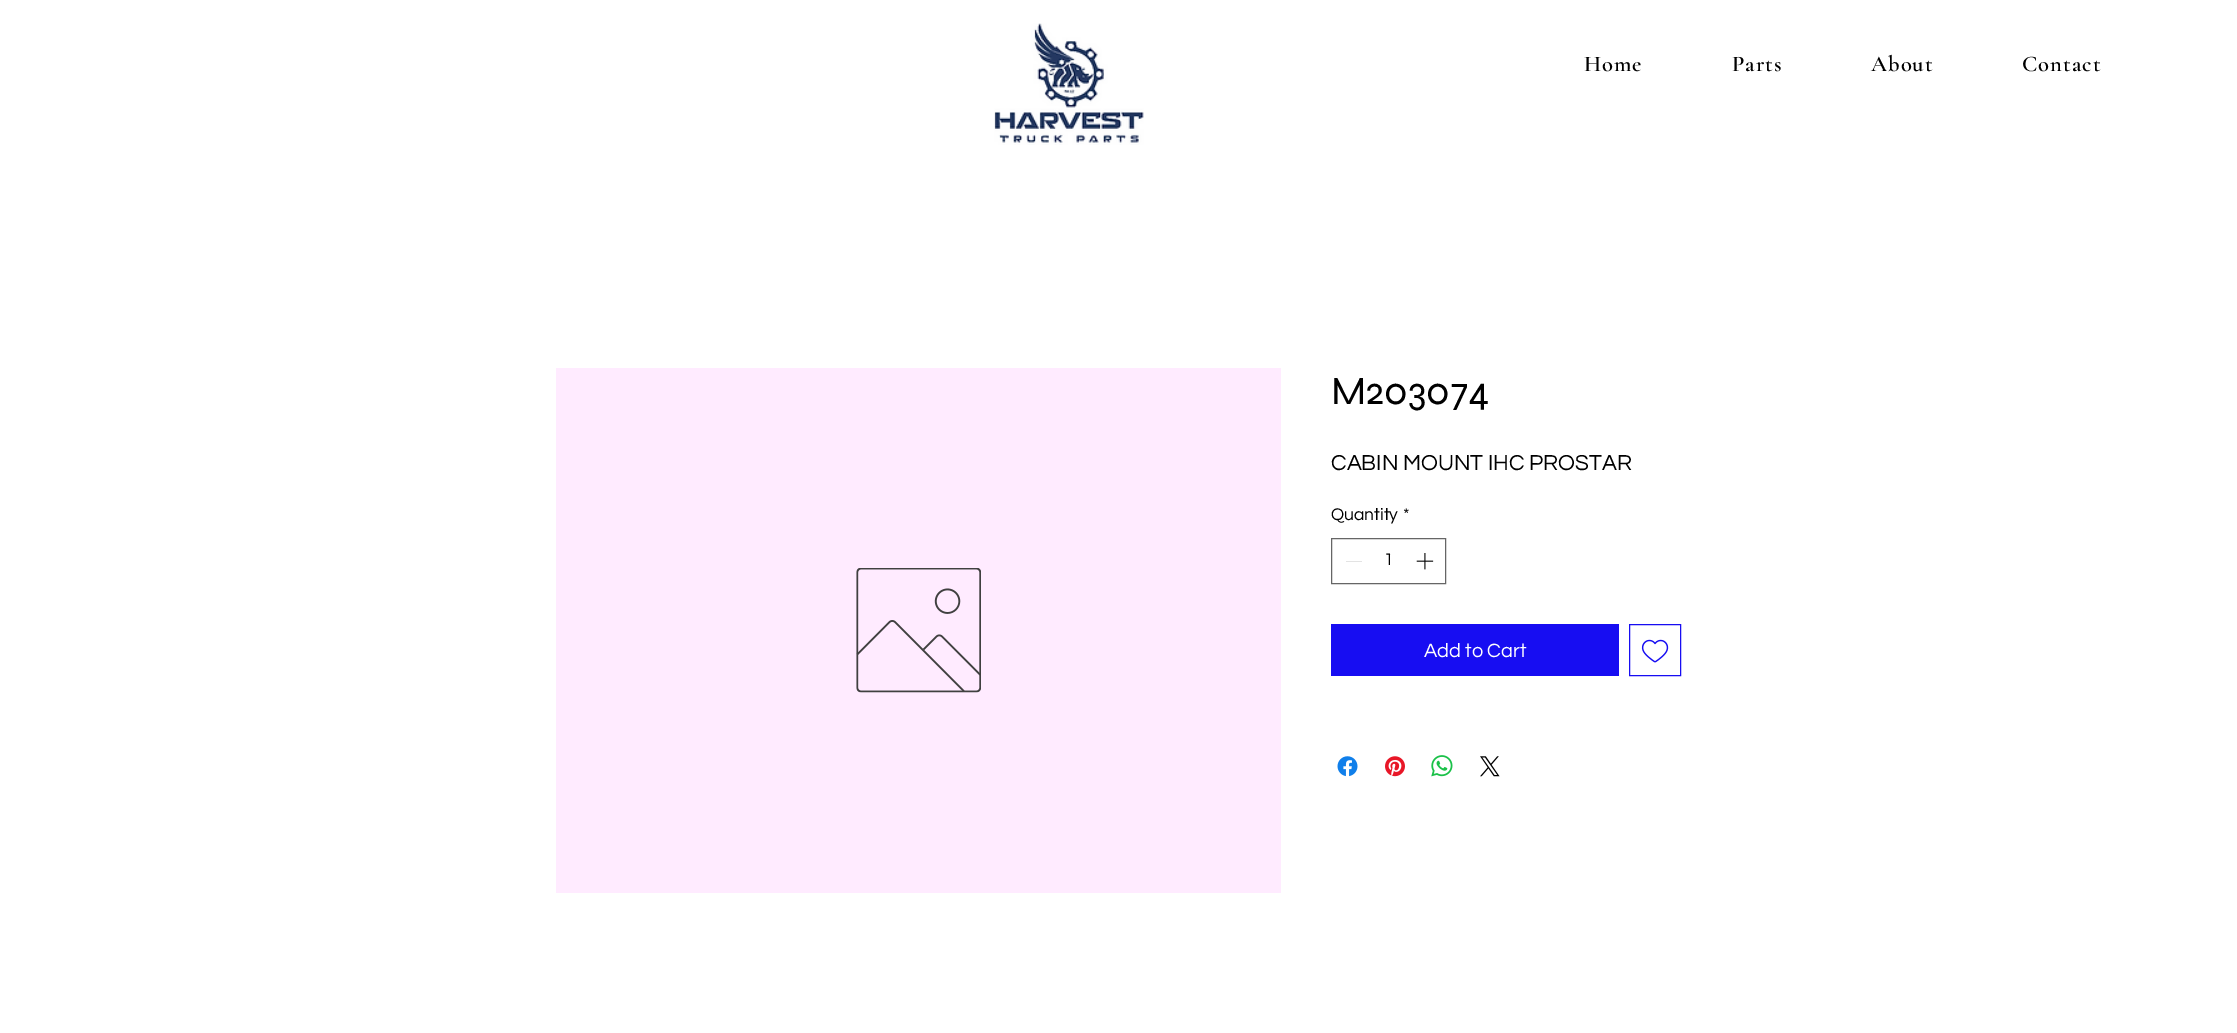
%!PS
<< /PageSize [2237 1033] >> setpagedevice
/rgb { 3 { 255 div 3 1 roll } repeat setrgbcolor } def
/font { [ exch dup neg 0 0 3 -1 roll 0 0 ] selectfont } def
/text { moveto show } def
/picture { 5 dict begin { /h /w /y /x /name } { exch def } forall
  gsave x y translate w h scale
  w h 8 [w 0 0 h 0 0] name (r) file false 3 colorimage grestore end } def
0 1033 translate 1 -1 scale
4 setmiterlimit
255 255 255 rgb
0 0 2237 1033 rectfill
(img_01.rgb) 994 23 150 122 picture
255 235 255 rgb
556 368 725 525 rectfill
(img_02.rgb) 856 568 125 125 picture
102 102 102 rgb
1331.5 538.5 114 45 rectstroke
227 227 227 rgb
1346 561 16 1 rectfill
(img_03.rgb) 1416 553 18 17 picture
23 13 242 rgb
1331 624 288 52 rectfill
1629.5 624.5 51 51 rectstroke
(img_04.rgb) 1641 639 28 24 picture
(img_05.rgb) 1337 756 21 21 picture
(img_06.rgb) 1385 756 20 21 picture
(img_07.rgb) 1431 755 22 22 picture
(img_08.rgb) 1480 756 20 21 picture
/CormorantGaramond-SemiBold 22.5 font
0 0 0 rgb
1584 71 moveto 1 0 (Home) ashow
1732 71 moveto 1 0 (Parts) ashow
1871 71 moveto 1 0 (About) ashow
2022 71 moveto 1 0 (Contact) ashow
/Syne-Regular 40 font
(M203074) 1331 404 text
/Questrial-Regular 22.5 font
(CABIN MOUNT IHC PROSTAR) 1331 470 text
/Questrial-Regular 17.5 font
(Quantity) 1331 520 text
(*) 1403 520 text
(1) 1384 565 text
/Questrial-Regular 20 font
255 255 255 rgb
(Add to Cart) 1424 657 text
showpage
